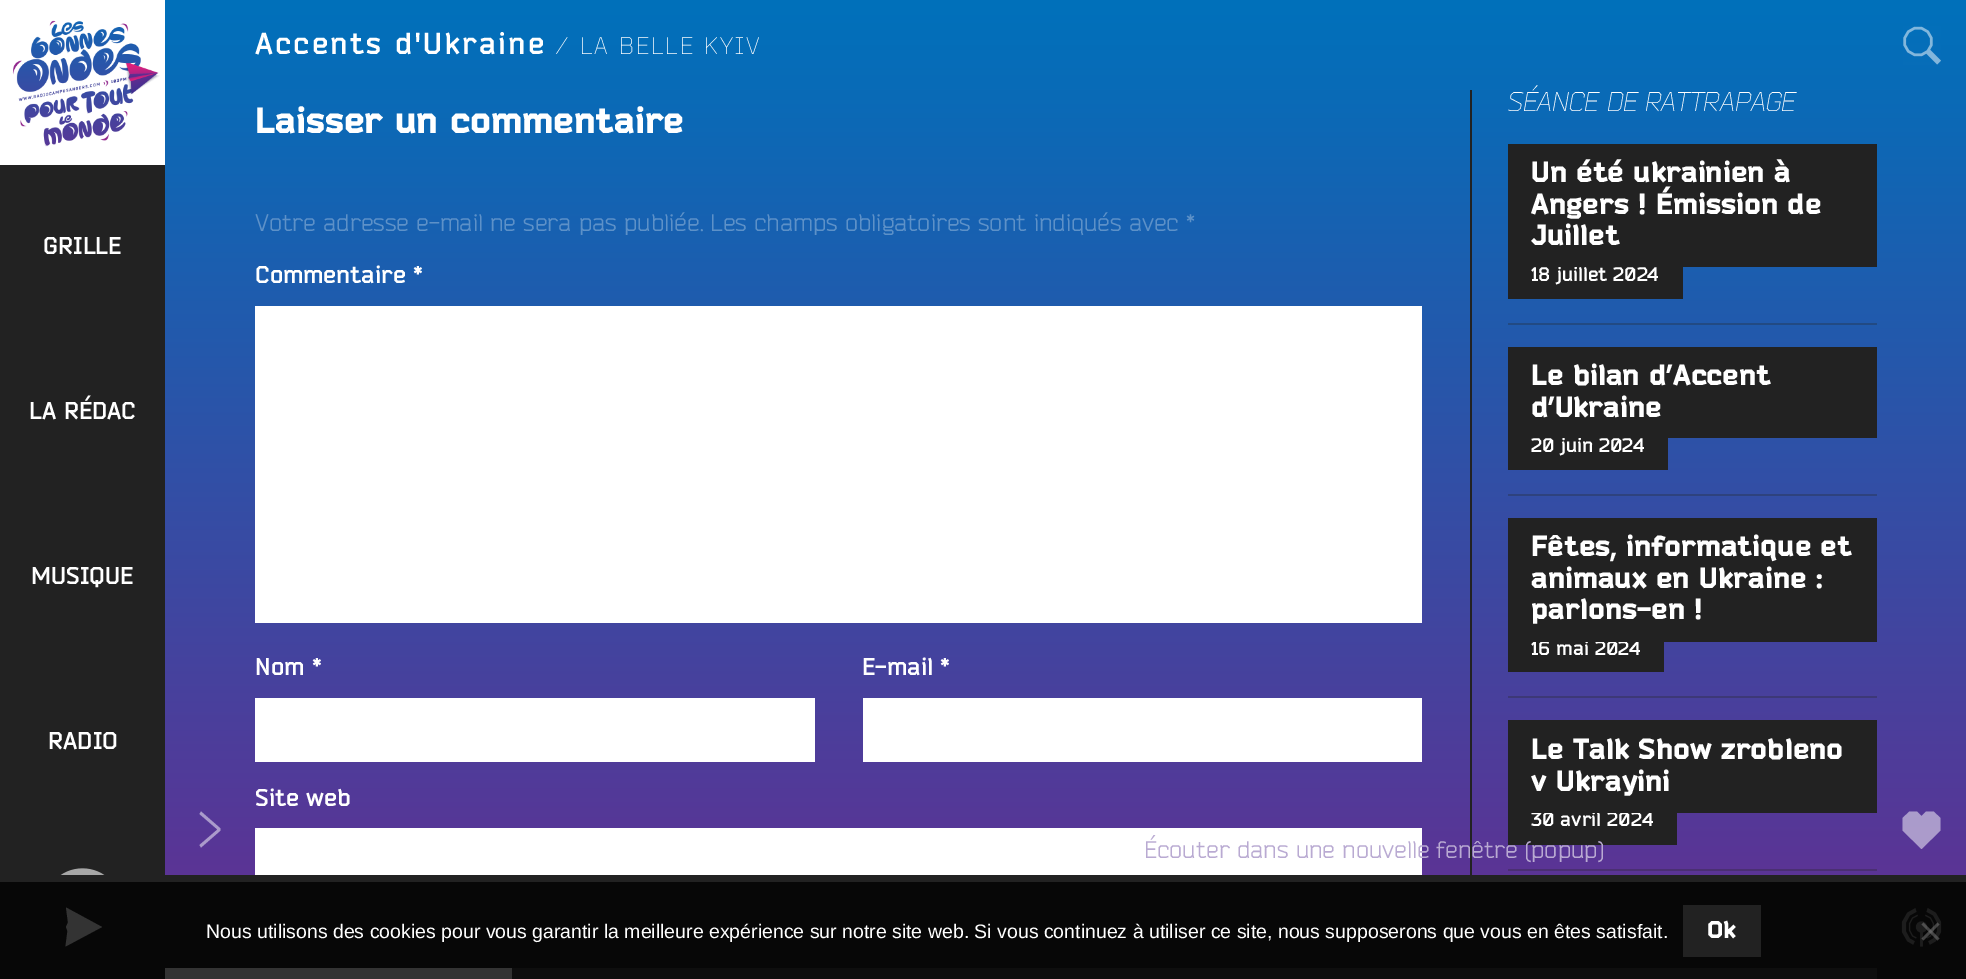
%!PS
<< /PageSize [1966 979] /PageUsesTransparency true >> setpagedevice
/rgb { 3 { 255 div 3 1 roll } repeat setrgbcolor } def
/font { [ exch dup neg 0 0 3 -1 roll 0 0 ] selectfont } def
/text { moveto show } def
/alpha { dup .setfillconstantalpha .setstrokeconstantalpha } def
/picture { 5 dict begin { /h /w /y /x /name } { exch def } forall
  gsave x y translate w h scale
  w h 8 [w 0 0 h 0 0] name (r) file false 3 colorimage grestore end } def
0 .pushpdf14devicefilter
0 979 translate 1 -1 scale
4 setmiterlimit
255 255 255 rgb
0 0 1966 979 rectfill
gsave 165 90 moveto 1801 0 rlineto 0 785 rlineto -1801 0 rlineto closepath clip newpath
<< /ShadingType 2 /ColorSpace /DeviceRGB /Coords [983 0 983 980] /Extend [true true] /Function << /FunctionType 2 /Domain [0 1] /C0 [0 0.443 0.733] /C1 [0.4 0.176 0.565] /N 1 >> >> shfill grestore
34 34 34 rgb
0 165 165 710 rectfill
(img_01.rgb) 0 0 165 165 picture
(img_02.rgb) 60 868 45 7 picture
gsave 165 0 moveto 1801 0 rlineto 0 90 rlineto -1801 0 rlineto closepath clip newpath
<< /ShadingType 2 /ColorSpace /DeviceRGB /Coords [983 0 983 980] /Extend [true true] /Function << /FunctionType 2 /Domain [0 1] /C0 [0 0.443 0.733] /C1 [0.4 0.176 0.565] /N 1 >> >> shfill grestore
1470 90 2 785 rectfill
255 255 255 rgb
255 306 1167 317 rectfill
255 698 560 64 rectfill
863 698 559 64 rectfill
255 828 1167 47 rectfill
0.5 alpha
201 847.5 moveto -1.5 -2.5 rlineto 18 -15.5 rlineto -18 -15.5 rlineto 1.5 -2.5 rlineto 19.5 17 rlineto 0 2 rlineto closepath fill
1 alpha
34 74 131 rgb
1508 323 369 2 rectfill
34 34 34 rgb
1508 267 175 32 rectfill
46 66 126 rgb
1508 494 369 2 rectfill
34 34 34 rgb
1508 438 160 32 rectfill
61 56 119 rgb
1508 696 369 2 rectfill
34 34 34 rgb
1508 642 156 30 rectfill
74 47 114 rgb
1508 869 369 2 rectfill
34 34 34 rgb
1508 813 169 32 rectfill
(img_03.rgb) 1903 26 38 39 picture
0.5 alpha
255 255 255 rgb
1921.5 816 moveto 4.5 -4.5 rlineto 7.5 0 rlineto 7 6.5 rlineto 0 12.5 rlineto -19 18.5 rlineto -19 -18.5 rlineto 0 -12.5 rlineto 7 -6.5 rlineto 7.5 0 rlineto closepath fill
1 alpha
34 34 34 rgb
0 875 1966 104 rectfill
255 255 255 rgb
65.5 946.5 moveto 36.5 -19.5 rlineto -36 -19.5 rlineto 2 15 rlineto -2 4.5 rlineto 1.5 4 rlineto closepath fill
(img_04.rgb) 1901 908 41 39 picture
68 68 68 rgb
512 968 1365 11 rectfill
255 255 255 rgb
165 968 347 11 rectfill
0.8 alpha
0 0 0 rgb
0 882 1966 97 rectfill
1 alpha
34 34 34 rgb
1683 905 78 52 rectfill
0.5 alpha
128 128 128 rgb
1937.5 922.5 moveto 2 2 rlineto -16 16 rlineto -2 -2 rlineto closepath fill
1921.5 924.5 moveto 2 -2 rlineto 16 16 rlineto -2 2 rlineto closepath fill
/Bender-Bold 24 font
1 alpha
255 255 255 rgb
(GRILLE) 43 254 text
(LA RÉDAC) 29 419 text
(MUSIQUE) 31 584 text
(RADIO) 48 749 text
/Bender-Bold 30 font
255 54 moveto 2.4 0 (Accents d'Ukraine) ashow
/Bender-Light 24 font
556 54 moveto 2.4 0 (/ LA BELLE KYIV) ashow
/Bender-Black 36 font
(Laisser un commentaire) 255 133 text
/Bender-Regular 24 font
93 145 200 rgb
(Votre adresse e-mail ne sera pas publiée. Les champs obligatoires sont indiqués avec) 255 231 text
(*) 1186 231 text
/Bender-Bold 24 font
255 255 255 rgb
(Commentaire *) 255 283 text
(Nom *) 255 675 text
(E-mail *) 862 675 text
(Site web) 255 806 text
/Bender-LightItalic 27 font
(SÉANCE DE RATTRAPAGE) 1507 111 text
/Bender-Bold 19.5 font
(18 juillet 2024) 1531 281 text
34 34 34 rgb
1508 144 369 123 rectfill
/Bender-Black 28.75 font
255 255 255 rgb
(Juillet) 1531 245 text
(Angers ! Émission de) 1531 214 text
(Un été ukrainien à) 1531 182 text
/Bender-Bold 19.5 font
(20 juin 2024) 1531 452 text
34 34 34 rgb
1508 347 369 91 rectfill
/Bender-Black 28.75 font
255 255 255 rgb
(d’Ukraine) 1531 417 text
(Le bilan d’Accent) 1531 385 text
/Bender-Bold 19.5 font
(16 mai 2024) 1531 655 text
34 34 34 rgb
1508 518 369 124 rectfill
/Bender-Black 28.75 font
255 255 255 rgb
(parlons-en !) 1531 619 text
(animaux en Ukraine :) 1531 588 text
(Fêtes, informatique et) 1531 556 text
/Bender-Bold 19.5 font
(30 avril 2024) 1531 826 text
34 34 34 rgb
1508 720 369 93 rectfill
/Bender-Black 28.75 font
255 255 255 rgb
(v Ukrayini) 1531 791 text
(Le Talk Show zrobleno) 1531 759 text
/Bender-Regular 24 font
185 170 210 rgb
(Écouter dans une nouvelle fenêtre \(popup\)) 1144 858 text
/LiberationSans-Regular 19.5 font
255 255 255 rgb
(Nous utilisons des cookies pour vous garantir la meilleure expérience sur notre site web. Si vous continuez à utiliser ce site, nous supposerons que vous en êtes satisfait.) 206 938 text
/Bender-Black 24 font
(Ok) 1707 938 text
.poppdf14devicefilter showpage
